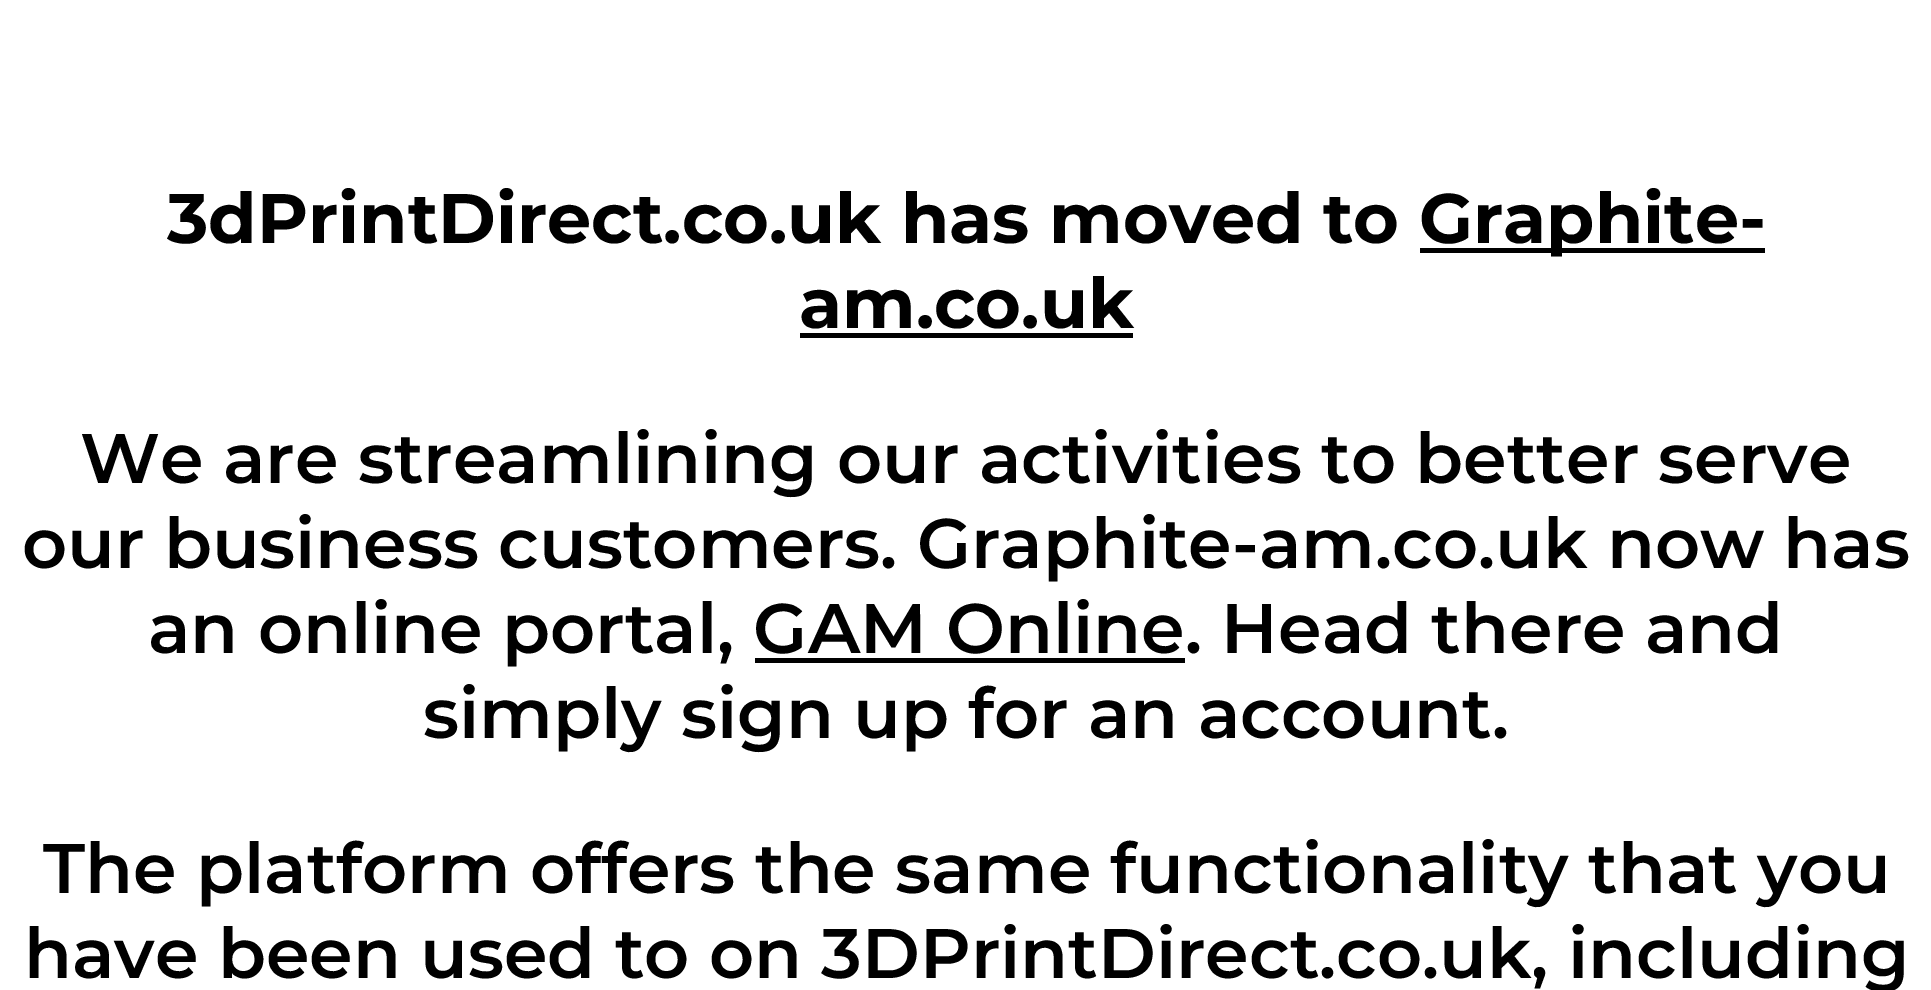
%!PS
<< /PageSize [1931 990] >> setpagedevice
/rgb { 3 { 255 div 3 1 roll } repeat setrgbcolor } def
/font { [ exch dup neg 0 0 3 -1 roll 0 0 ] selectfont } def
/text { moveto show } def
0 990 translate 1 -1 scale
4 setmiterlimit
255 255 255 rgb
0 0 1931 990 rectfill
0 0 0 rgb
1420 248 345 5 rectfill
800 333 333 5 rectfill
755 658 430 5 rectfill
/Montserrat-Bold 70 font
(3dPrintDirect.co.uk has moved to) 167 243 text
(Graphite-) 1419 243 text
(am.co.uk) 799 328 text
/Montserrat-SemiBold 70 font
(We are streamlining our activities to better serve) 80 483 text
(our business customers. Graphite-am.co.uk now has) 22 568 text
(an online portal, GAM Online. Head there and) 148 653 text
(simply sign up for an account.) 423 738 text
(The platform offers the same functionality that you) 43 893 text
(have been used to on 3DPrintDirect.co.uk, including) 24 978 text
showpage
